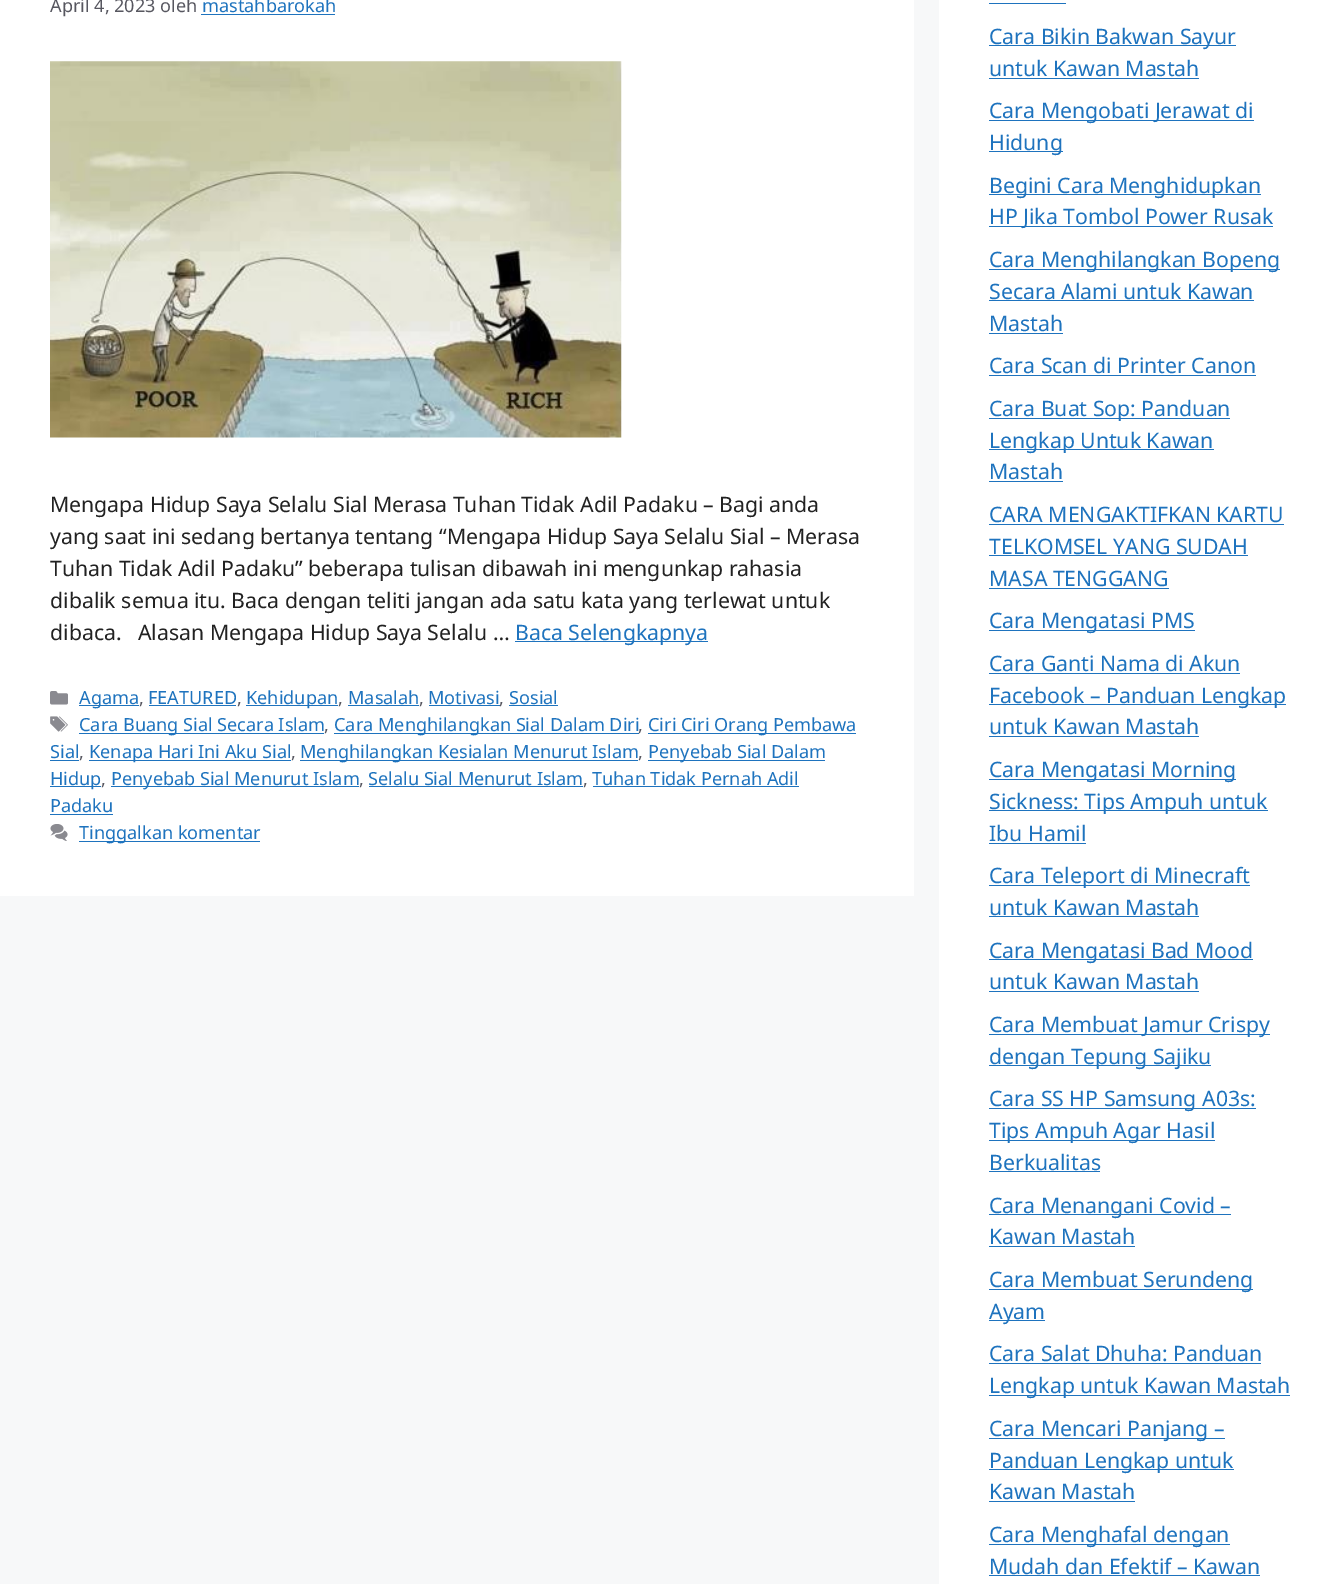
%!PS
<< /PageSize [1341 1584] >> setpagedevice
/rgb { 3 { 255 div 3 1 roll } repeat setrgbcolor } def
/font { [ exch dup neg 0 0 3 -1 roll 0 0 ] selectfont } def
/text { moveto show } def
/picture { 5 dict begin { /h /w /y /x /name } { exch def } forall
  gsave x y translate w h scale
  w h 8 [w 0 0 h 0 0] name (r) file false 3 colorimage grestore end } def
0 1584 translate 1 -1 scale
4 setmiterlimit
247 248 249 rgb
0 0 1341 1584 rectfill
255 255 255 rgb
0 0 914 896 rectfill
30 115 190 rgb
201 14 134 1 rectfill
(img_01.rgb) 50 61 572 377 picture
515 641 193 1 rectfill
(img_02.rgb) 50 691 18 14 picture
79 705 60 1 rectfill
149 705 87 1 rectfill
246 705 92 1 rectfill
348 705 71 1 rectfill
429 705 71 1 rectfill
509 705 49 1 rectfill
(img_03.rgb) 50 716 18 16 picture
79 733 245 1 rectfill
334 733 305 1 rectfill
648 733 208 1 rectfill
50 760 29 1 rectfill
89 760 202 1 rectfill
300 760 338 1 rectfill
648 760 177 1 rectfill
50 786 51 1 rectfill
111 786 248 1 rectfill
369 786 214 1 rectfill
593 786 206 1 rectfill
50 814 63 1 rectfill
(img_04.rgb) 50 824 18 17 picture
79 841 181 1 rectfill
255 255 255 rgb
939 0 402 1584 rectfill
30 115 190 rgb
989 3 77 1 rectfill
989 45 247 1 rectfill
989 78 210 1 rectfill
989 120 265 1 rectfill
989 151 74 1 rectfill
989 194 272 1 rectfill
989 226 284 1 rectfill
989 269 291 1 rectfill
989 300 265 1 rectfill
989 333 74 1 rectfill
989 375 267 1 rectfill
989 418 241 1 rectfill
989 449 225 1 rectfill
989 481 74 1 rectfill
989 524 295 1 rectfill
989 555 259 1 rectfill
989 588 180 1 rectfill
989 630 206 1 rectfill
989 673 251 1 rectfill
989 704 297 1 rectfill
989 736 210 1 rectfill
989 779 247 1 rectfill
989 810 279 1 rectfill
989 843 97 1 rectfill
989 885 261 1 rectfill
989 916 210 1 rectfill
989 959 264 1 rectfill
989 991 210 1 rectfill
989 1034 281 1 rectfill
989 1065 222 1 rectfill
989 1108 267 1 rectfill
989 1140 226 1 rectfill
989 1171 111 1 rectfill
989 1214 242 1 rectfill
989 1246 146 1 rectfill
989 1289 264 1 rectfill
989 1320 56 1 rectfill
989 1363 272 1 rectfill
989 1395 301 1 rectfill
989 1438 236 1 rectfill
989 1469 245 1 rectfill
989 1501 146 1 rectfill
989 1544 241 1 rectfill
989 1575 271 1 rectfill
/NotoSans-Regular 18.1 font
87 87 96 rgb
(April 4, 2023 oleh) 50 12 text
30 115 190 rgb
(mastahbarokah) 202 12 text
/NotoSans-Regular 21.25 font
34 34 34 rgb
(Mengapa Hidup Saya Selalu Sial Merasa Tuhan Tidak Adil Padaku – Bagi anda) 50 512 text
(yang saat ini sedang bertanya tentang “Mengapa Hidup Saya Selalu Sial – Merasa) 50 544 text
(Tuhan Tidak Adil Padaku” beberapa tulisan dibawah ini mengunkap rahasia) 50 576 text
(dibalik semua itu. Baca dengan teliti jangan ada satu kata yang terlewat untuk) 50 608 text
(dibaca.   Alasan Mengapa Hidup Saya Selalu …) 50 640 text
30 115 190 rgb
(Baca Selengkapnya) 515 640 text
/NotoSans-Regular 18.1 font
(Agama) 79 704 text
87 87 96 rgb
(,) 139 704 text
30 115 190 rgb
(FEATURED) 148 704 text
87 87 96 rgb
(,) 237 704 text
30 115 190 rgb
(Kehidupan) 246 704 text
87 87 96 rgb
(,) 338 704 text
30 115 190 rgb
(Masalah) 348 704 text
87 87 96 rgb
(,) 419 704 text
30 115 190 rgb
(Motivasi) 428 704 text
87 87 96 rgb
(,) 499 704 text
30 115 190 rgb
(Sosial) 509 704 text
(Cara Buang Sial Secara Islam) 79 731 text
87 87 96 rgb
(,) 324 731 text
30 115 190 rgb
(Cara Menghilangkan Sial Dalam Diri) 334 731 text
87 87 96 rgb
(,) 638 731 text
30 115 190 rgb
(Ciri Ciri Orang Pembawa) 648 731 text
(Sial) 50 758 text
87 87 96 rgb
(,) 79 758 text
30 115 190 rgb
(Kenapa Hari Ini Aku Sial) 89 758 text
87 87 96 rgb
(,) 291 758 text
30 115 190 rgb
(Menghilangkan Kesialan Menurut Islam) 300 758 text
87 87 96 rgb
(,) 638 758 text
30 115 190 rgb
(Penyebab Sial Dalam) 648 758 text
(Hidup) 50 785 text
87 87 96 rgb
(,) 101 785 text
30 115 190 rgb
(Penyebab Sial Menurut Islam) 111 785 text
87 87 96 rgb
(,) 359 785 text
30 115 190 rgb
(Selalu Sial Menurut Islam) 368 785 text
87 87 96 rgb
(,) 583 785 text
30 115 190 rgb
(Tuhan Tidak Pernah Adil) 592 785 text
(Padaku) 50 812 text
(Tinggalkan komentar) 79 839 text
/NotoSans-Regular 21.25 font
(Cara Bikin Bakwan Sayur) 989 44 text
(untuk Kawan Mastah) 989 76 text
(Cara Mengobati Jerawat di) 989 118 text
(Hidung) 989 150 text
(Begini Cara Menghidupkan) 989 193 text
(HP Jika Tombol Power Rusak) 989 224 text
(Cara Menghilangkan Bopeng) 989 267 text
(Secara Alami untuk Kawan) 989 299 text
(Mastah) 989 331 text
(Cara Scan di Printer Canon) 989 373 text
(Cara Buat Sop: Panduan) 989 416 text
(Lengkap Untuk Kawan) 989 448 text
(Mastah) 989 479 text
(CARA MENGAKTIFKAN KARTU) 989 522 text
(TELKOMSEL YANG SUDAH) 989 554 text
(MASA TENGGANG) 989 586 text
(Cara Mengatasi PMS) 989 628 text
(Cara Ganti Nama di Akun) 989 671 text
(Facebook – Panduan Lengkap) 989 703 text
(untuk Kawan Mastah) 989 734 text
(Cara Mengatasi Morning) 989 777 text
(Sickness: Tips Ampuh untuk) 989 809 text
(Ibu Hamil) 989 841 text
(Cara Teleport di Minecraft) 989 883 text
(untuk Kawan Mastah) 989 915 text
(Cara Mengatasi Bad Mood) 989 958 text
(untuk Kawan Mastah) 989 989 text
(Cara Membuat Jamur Crispy) 989 1032 text
(dengan Tepung Sajiku) 989 1064 text
(Cara SS HP Samsung A03s:) 989 1106 text
(Tips Ampuh Agar Hasil) 989 1138 text
(Berkualitas) 989 1170 text
(Cara Menangani Covid –) 989 1213 text
(Kawan Mastah) 989 1244 text
(Cara Membuat Serundeng) 989 1287 text
(Ayam) 989 1319 text
(Cara Salat Dhuha: Panduan) 989 1361 text
(Lengkap untuk Kawan Mastah) 989 1393 text
(Cara Mencari Panjang –) 989 1436 text
(Panduan Lengkap untuk) 989 1468 text
(Kawan Mastah) 989 1499 text
(Cara Menghafal dengan) 989 1542 text
(Mudah dan Efektif – Kawan) 989 1574 text
showpage
